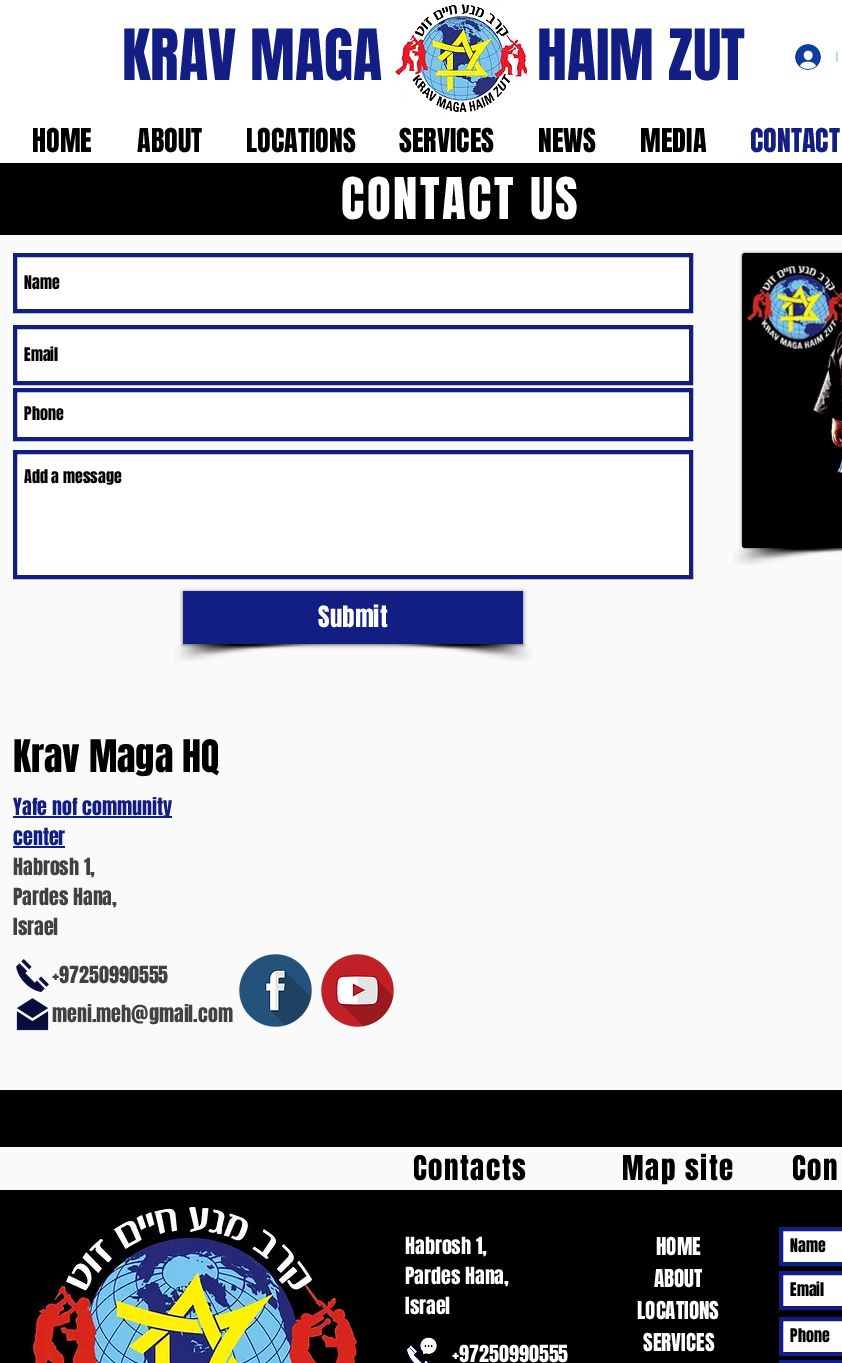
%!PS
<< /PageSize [842 1363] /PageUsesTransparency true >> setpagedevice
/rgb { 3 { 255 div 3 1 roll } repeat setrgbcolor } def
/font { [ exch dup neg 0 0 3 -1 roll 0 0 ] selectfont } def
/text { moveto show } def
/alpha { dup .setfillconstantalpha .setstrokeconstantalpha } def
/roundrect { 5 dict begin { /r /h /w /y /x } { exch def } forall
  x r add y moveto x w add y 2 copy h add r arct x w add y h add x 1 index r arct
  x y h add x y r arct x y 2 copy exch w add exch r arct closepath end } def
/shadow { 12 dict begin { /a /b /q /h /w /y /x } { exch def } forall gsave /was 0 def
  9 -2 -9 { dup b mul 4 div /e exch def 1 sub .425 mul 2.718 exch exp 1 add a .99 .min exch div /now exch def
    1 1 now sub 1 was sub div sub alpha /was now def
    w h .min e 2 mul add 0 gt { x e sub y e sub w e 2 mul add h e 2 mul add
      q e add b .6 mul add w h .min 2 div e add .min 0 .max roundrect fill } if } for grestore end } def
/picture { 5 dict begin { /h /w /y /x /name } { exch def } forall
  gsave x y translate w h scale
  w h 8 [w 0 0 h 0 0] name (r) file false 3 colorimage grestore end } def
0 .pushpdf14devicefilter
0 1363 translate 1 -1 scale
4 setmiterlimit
0 0 0 rgb
0 0 842 1363 rectfill
255 255 255 rgb
0 0 842 163 rectfill
(img_02.rgb) 795 44 26 26 picture
250 250 250 rgb
0 235 842 855 rectfill
255 255 255 rgb
15 255 moveto 676 0 rlineto 0 56 rlineto -676 0 rlineto closepath gsave fill grestore
19 30 133 rgb
4 setlinewidth
stroke
255 255 255 rgb
15 327 moveto 676 0 rlineto 0 56 rlineto -676 0 rlineto closepath gsave fill grestore
19 30 133 rgb
stroke
255 255 255 rgb
15 390 moveto 676 0 rlineto 0 49 rlineto -676 0 rlineto closepath gsave fill grestore
19 30 133 rgb
stroke
255 255 255 rgb
15 452 moveto 676 0 rlineto 0 125 rlineto -676 0 rlineto closepath gsave fill grestore
19 30 133 rgb
stroke
(img_03.rgb) 174 644 154 18 picture
(img_04.rgb) 378 644 154 18 picture
0 0 0 rgb
183 592 340 53 0 2 0.6 shadow
19 30 133 rgb
183 591 340 53 rectfill
0 0 0 rgb
742 253 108 295 3 1.5 0.5 shadow
742.5 253.5 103 294 2.5 roundrect gsave fill grestore
1 setlinewidth
stroke
(img_05.rgb) 743 263 99 284 picture
(img_06.rgb) 733 548 109 18 picture
(img_07.rgb) 830 548 12 3 picture
19 30 133 rgb
13 816 159 2 rectfill
13 846 52 2 rectfill
(img_08.rgb) 16 959 33 33 picture
(img_09.rgb) 239 954 73 73 picture
(img_10.rgb) 321 954 73 73 picture
(img_11.rgb) 16 998 33 33 picture
250 250 250 rgb
0 1147 842 43 rectfill
(img_12.rgb) 30 1206 329 157 picture
255 255 255 rgb
781 1229 moveto 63 0 rlineto 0 35 rlineto -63 0 rlineto closepath gsave fill grestore
19 30 133 rgb
4 setlinewidth
stroke
255 255 255 rgb
781 1273 moveto 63 0 rlineto 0 35 rlineto -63 0 rlineto closepath gsave fill grestore
19 30 133 rgb
stroke
255 255 255 rgb
781 1319 moveto 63 0 rlineto 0 35 rlineto -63 0 rlineto closepath gsave fill grestore
19 30 133 rgb
stroke
781 1362 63 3 rectstroke
(img_13.rgb) 405 1337 32 26 picture
/Anton-Regular 60 font
(KRAV MAGA           HAIM ZUT) 122 80 text
(img_01.rgb) 392 2 135 111 picture
/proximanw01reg-Regular 15 font
127 204 247 rgb
(I) 835 62 text
/Anton-Regular 28 font
0 0 0 rgb
(HOME) 32 152 text
(ABOUT) 137 152 text
(LOCATIONS) 246 152 text
(SERVICES) 399 152 text
(NEWS) 538 152 text
(MEDIA) 640 152 text
19 30 133 rgb
(CONTACT) 750 152 text
/Anton-Regular 49 font
255 255 255 rgb
341 219 moveto 2.5 0 (CONTACT US) ashow
/Anton-Regular 16 font
0 0 0 rgb
(Name) 24 289 text
(Email) 24 361 text
(Phone) 24 420 text
(Add a message) 24 483 text
/Anton-Regular 25 font
255 255 255 rgb
(Submit) 318 627 text
/Anton-Regular 38 font
0 0 0 rgb
(Krav Maga HQ) 13 772 text
/Anton-Regular 20 font
19 30 133 rgb
(Yafe nof community) 13 815 text
(center) 13 845 text
65 65 65 rgb
(Habrosh 1,) 13 875 text
(Pardes Hana,) 13 905 text
(Israel) 13 935 text
(+97250990555) 52 983 text
(meni.meh@gmail.com) 52 1022 text
/Anton-Regular 29 font
0 0 0 rgb
413 1180 moveto 1.5 0 (Contacts) ashow
622 1180 moveto 1.5 0 (Map site) ashow
792 1180 moveto 1.5 0 (Con) ashow
/Anton-Regular 20 font
255 255 255 rgb
(Habrosh 1,) 405 1254 text
(Pardes Hana,) 405 1284 text
(Israel) 405 1314 text
/Anton-Regular 21 font
(HOME) 656 1255 text
(ABOUT) 654 1287 text
(LOCATIONS) 637 1319 text
(SERVICES) 643 1351 text
/Anton-Regular 16 font
0 0 0 rgb
(Name) 790 1252 text
(Email) 790 1296 text
(Phone) 790 1342 text
/Anton-Regular 20 font
255 255 255 rgb
(+97250990555) 452 1362 text
.poppdf14devicefilter showpage
